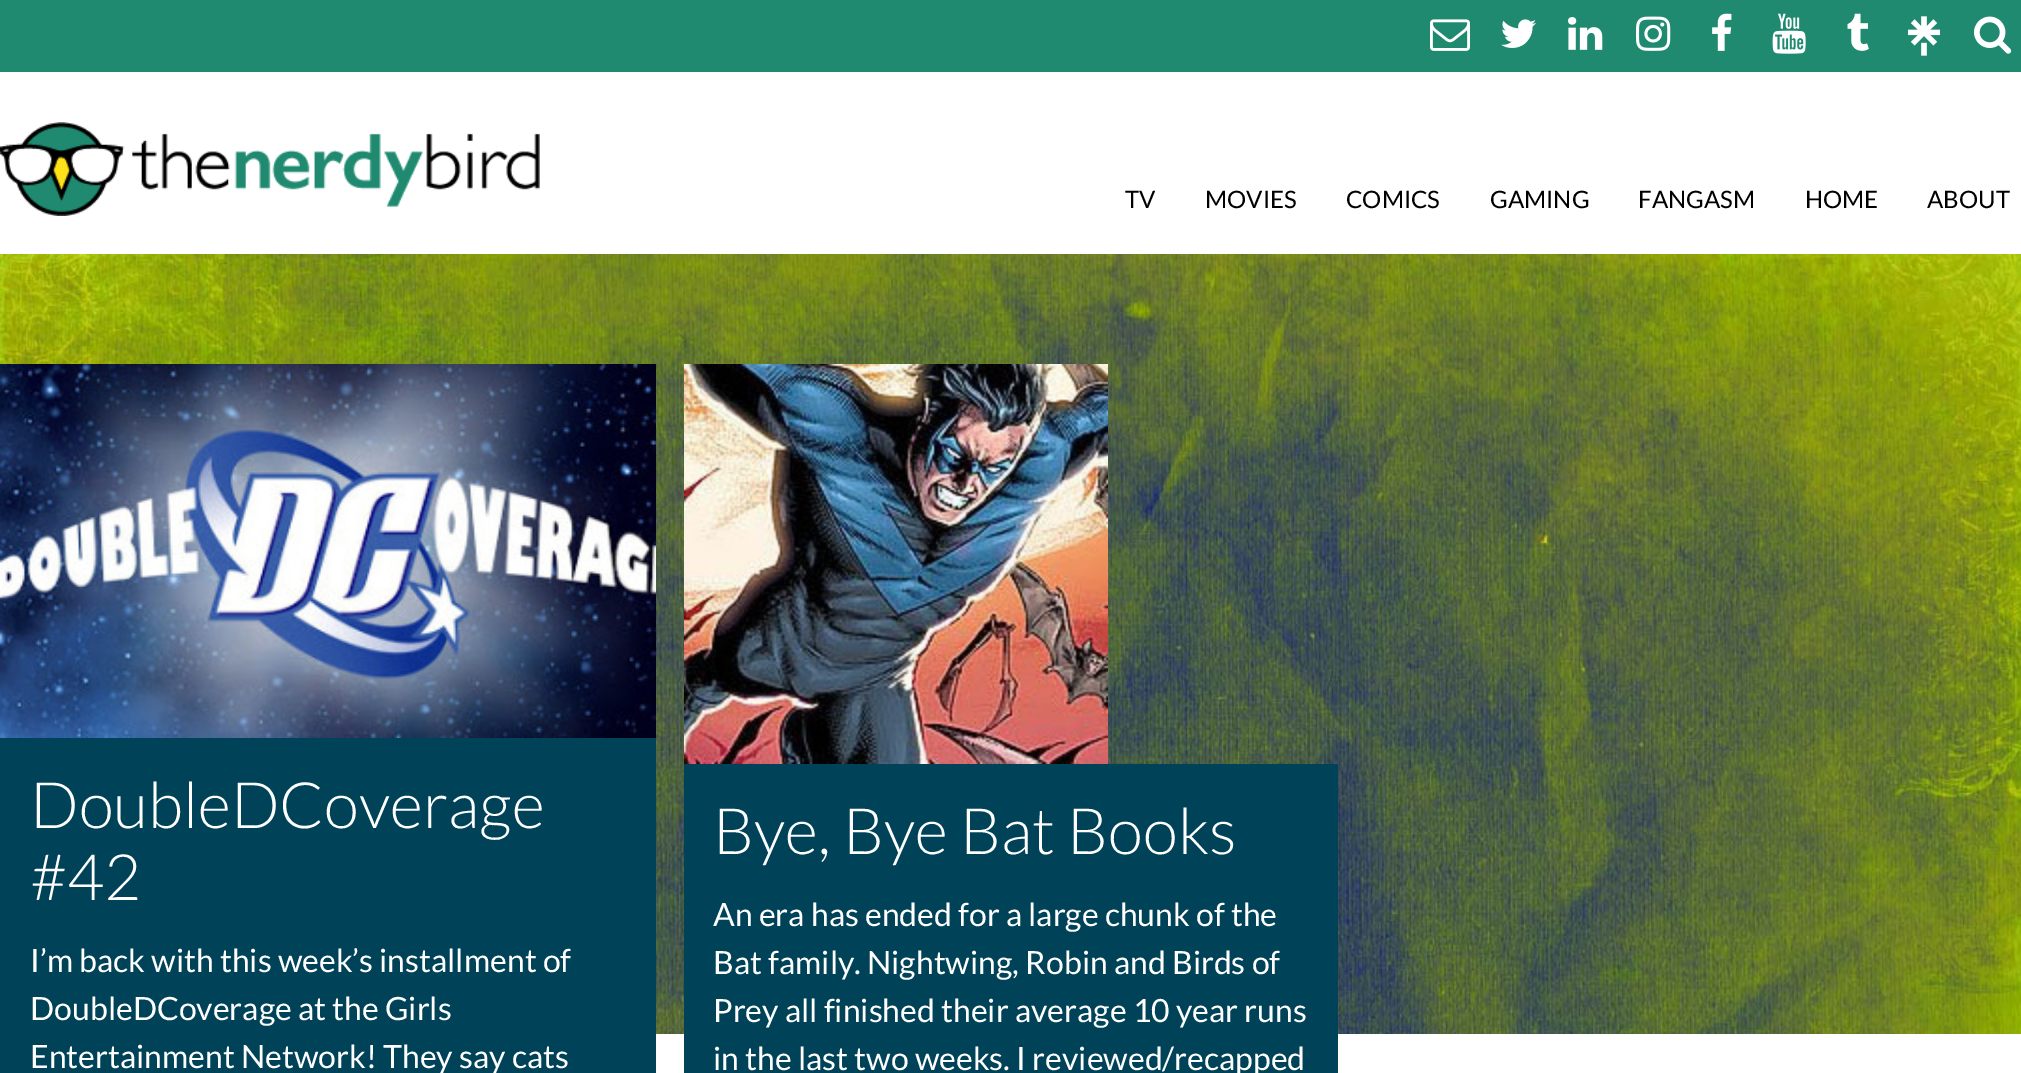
%!PS
<< /PageSize [2021 1073] >> setpagedevice
/rgb { 3 { 255 div 3 1 roll } repeat setrgbcolor } def
/font { [ exch dup neg 0 0 3 -1 roll 0 0 ] selectfont } def
/text { moveto show } def
/picture { 5 dict begin { /h /w /y /x /name } { exch def } forall
  gsave x y translate w h scale
  w h 8 [w 0 0 h 0 0] name (r) file false 3 colorimage grestore end } def
0 1073 translate 1 -1 scale
4 setmiterlimit
31 138 112 rgb
0 0 2021 1073 rectfill
(img_01.rgb) 1430 19 40 32 picture
(img_02.rgb) 1501 19 35 29 picture
(img_03.rgb) 1568 17 35 33 picture
(img_04.rgb) 1636 16 35 35 picture
(img_05.rgb) 1712 13 20 38 picture
(img_06.rgb) 1772 13 34 41 picture
(img_07.rgb) 1847 13 22 38 picture
(img_08.rgb) 1908 16 32 40 picture
(img_09.rgb) 1974 16 38 38 picture
255 255 255 rgb
0 72 2021 182 rectfill
(img_10.rgb) 0 122 540 94 picture
(img_11.rgb) 0 254 2021 780 picture
656 1034 1365 39 rectfill
(img_12.rgb) 0 364 656 374 picture
0 67 88 rgb
0 738 656 335 rectfill
(img_13.rgb) 684 364 424 400 picture
684 764 654 309 rectfill
/Lato-Regular 24 font
0 0 0 rgb
(TV) 1125 208 text
(MOVIES) 1205 208 text
(COMICS) 1346 208 text
(GAMING) 1490 208 text
(FANGASM) 1638 208 text
(HOME) 1805 208 text
(ABOUT) 1927 208 text
/Lato-Light 64 font
255 255 255 rgb
(DoubleDCoverage) 30 828 text
(#42) 30 900 text
/Lato-Regular 32 font
(I’m back with this week’s installment of) 30 972 text
(DoubleDCoverage at the Girls) 30 1020 text
(Entertainment Network! They say cats) 30 1068 text
/Lato-Light 64 font
(Bye, Bye Bat Books) 713 854 text
/Lato-Regular 32 font
(An era has ended for a large chunk of the) 713 926 text
(Bat family. Nightwing, Robin and Birds of) 713 974 text
(Prey all finished their average 10 year runs) 713 1022 text
(in the last two weeks. I reviewed/recapped) 713 1070 text
showpage
